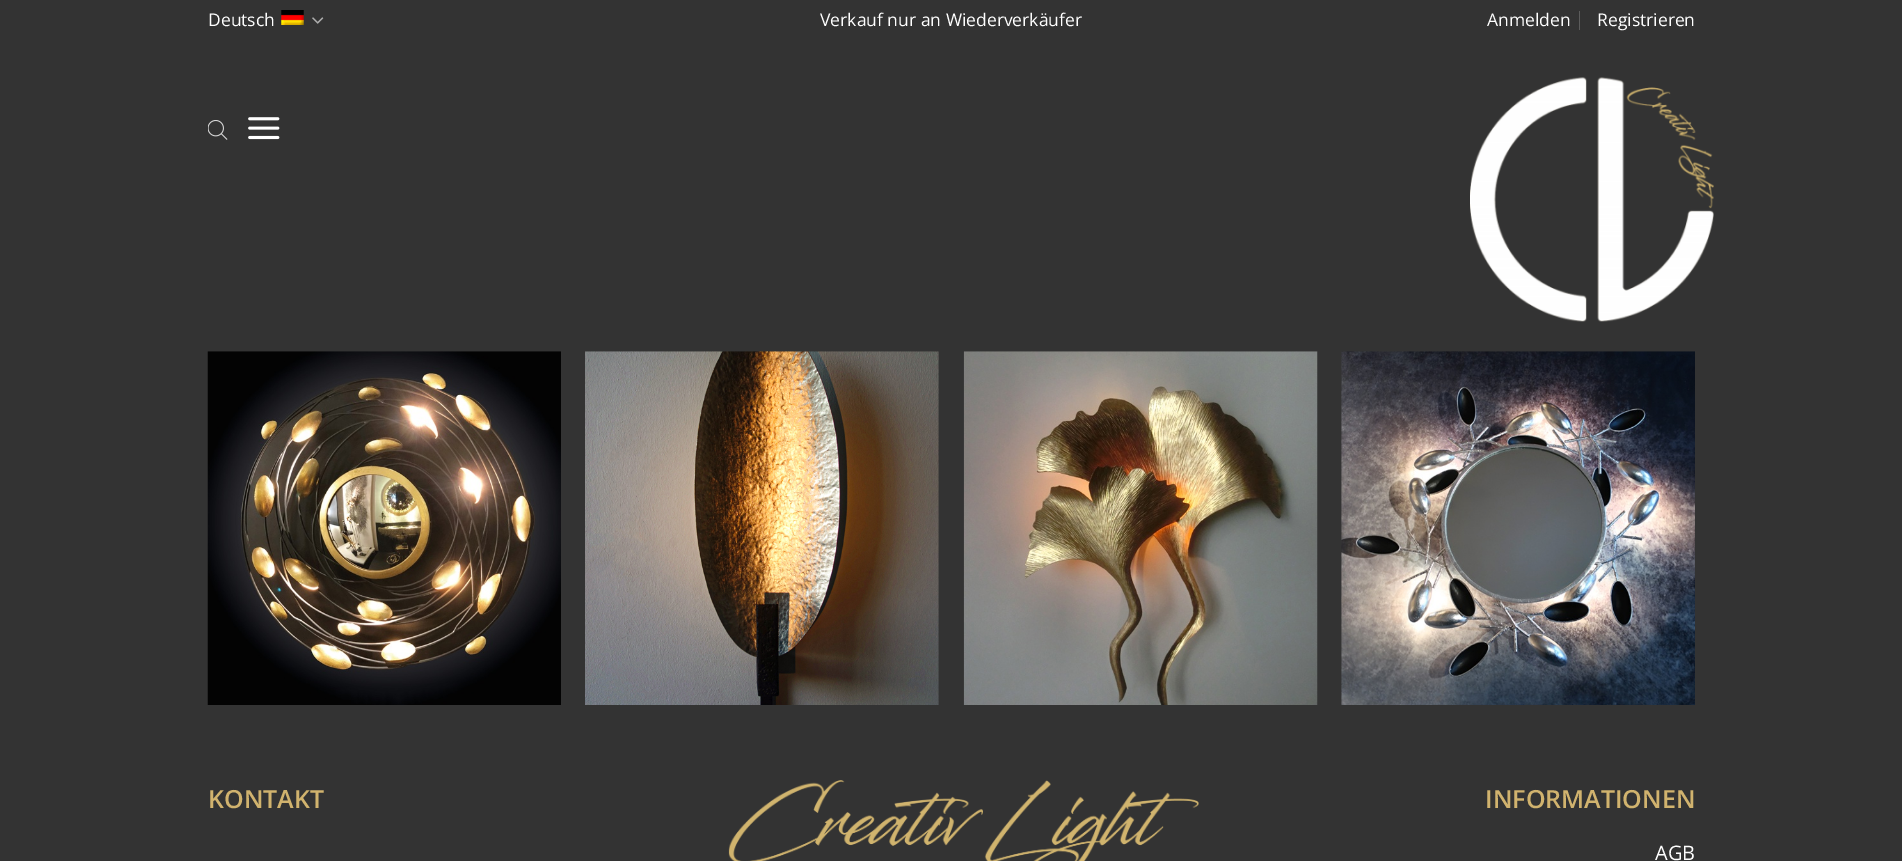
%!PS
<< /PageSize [1902 861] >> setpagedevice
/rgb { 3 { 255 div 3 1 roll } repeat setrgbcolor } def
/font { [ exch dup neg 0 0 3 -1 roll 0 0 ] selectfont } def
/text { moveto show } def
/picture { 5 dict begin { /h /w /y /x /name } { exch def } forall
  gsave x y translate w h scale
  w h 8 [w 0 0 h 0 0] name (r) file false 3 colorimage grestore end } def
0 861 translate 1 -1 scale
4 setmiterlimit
51 51 51 rgb
0 0 1902 861 rectfill
(img_01.rgb) 281 10 23 15 picture
(img_02.rgb) 312 17 12 7 picture
92 92 92 rgb
1579 11 1 19 rectfill
(img_03.rgb) 208 120 20 20 picture
(img_04.rgb) 248 117 32 23 picture
(img_05.rgb) 1470 77 244 245 picture
(img_06.rgb) 207 351 354 354 picture
(img_07.rgb) 585 351 354 354 picture
(img_08.rgb) 963 351 355 354 picture
(img_09.rgb) 1341 351 354 354 picture
(img_10.rgb) 728 780 471 81 picture
/OpenSans-Regular 17.5 font
255 255 255 rgb
(Deutsch) 208 26 text
(Verkauf nur an Wiederverkäufer) 820 26 text
(Anmelden) 1487 26 text
(Registrieren) 1597 26 text
/OpenSans-SemiBold 25 font
209 179 110 rgb
(KONTAKT) 208 808 text
(INFORMATIONEN) 1485 808 text
/OpenSans-Regular 20 font
255 255 255 rgb
(AGB) 1655 860 text
showpage
